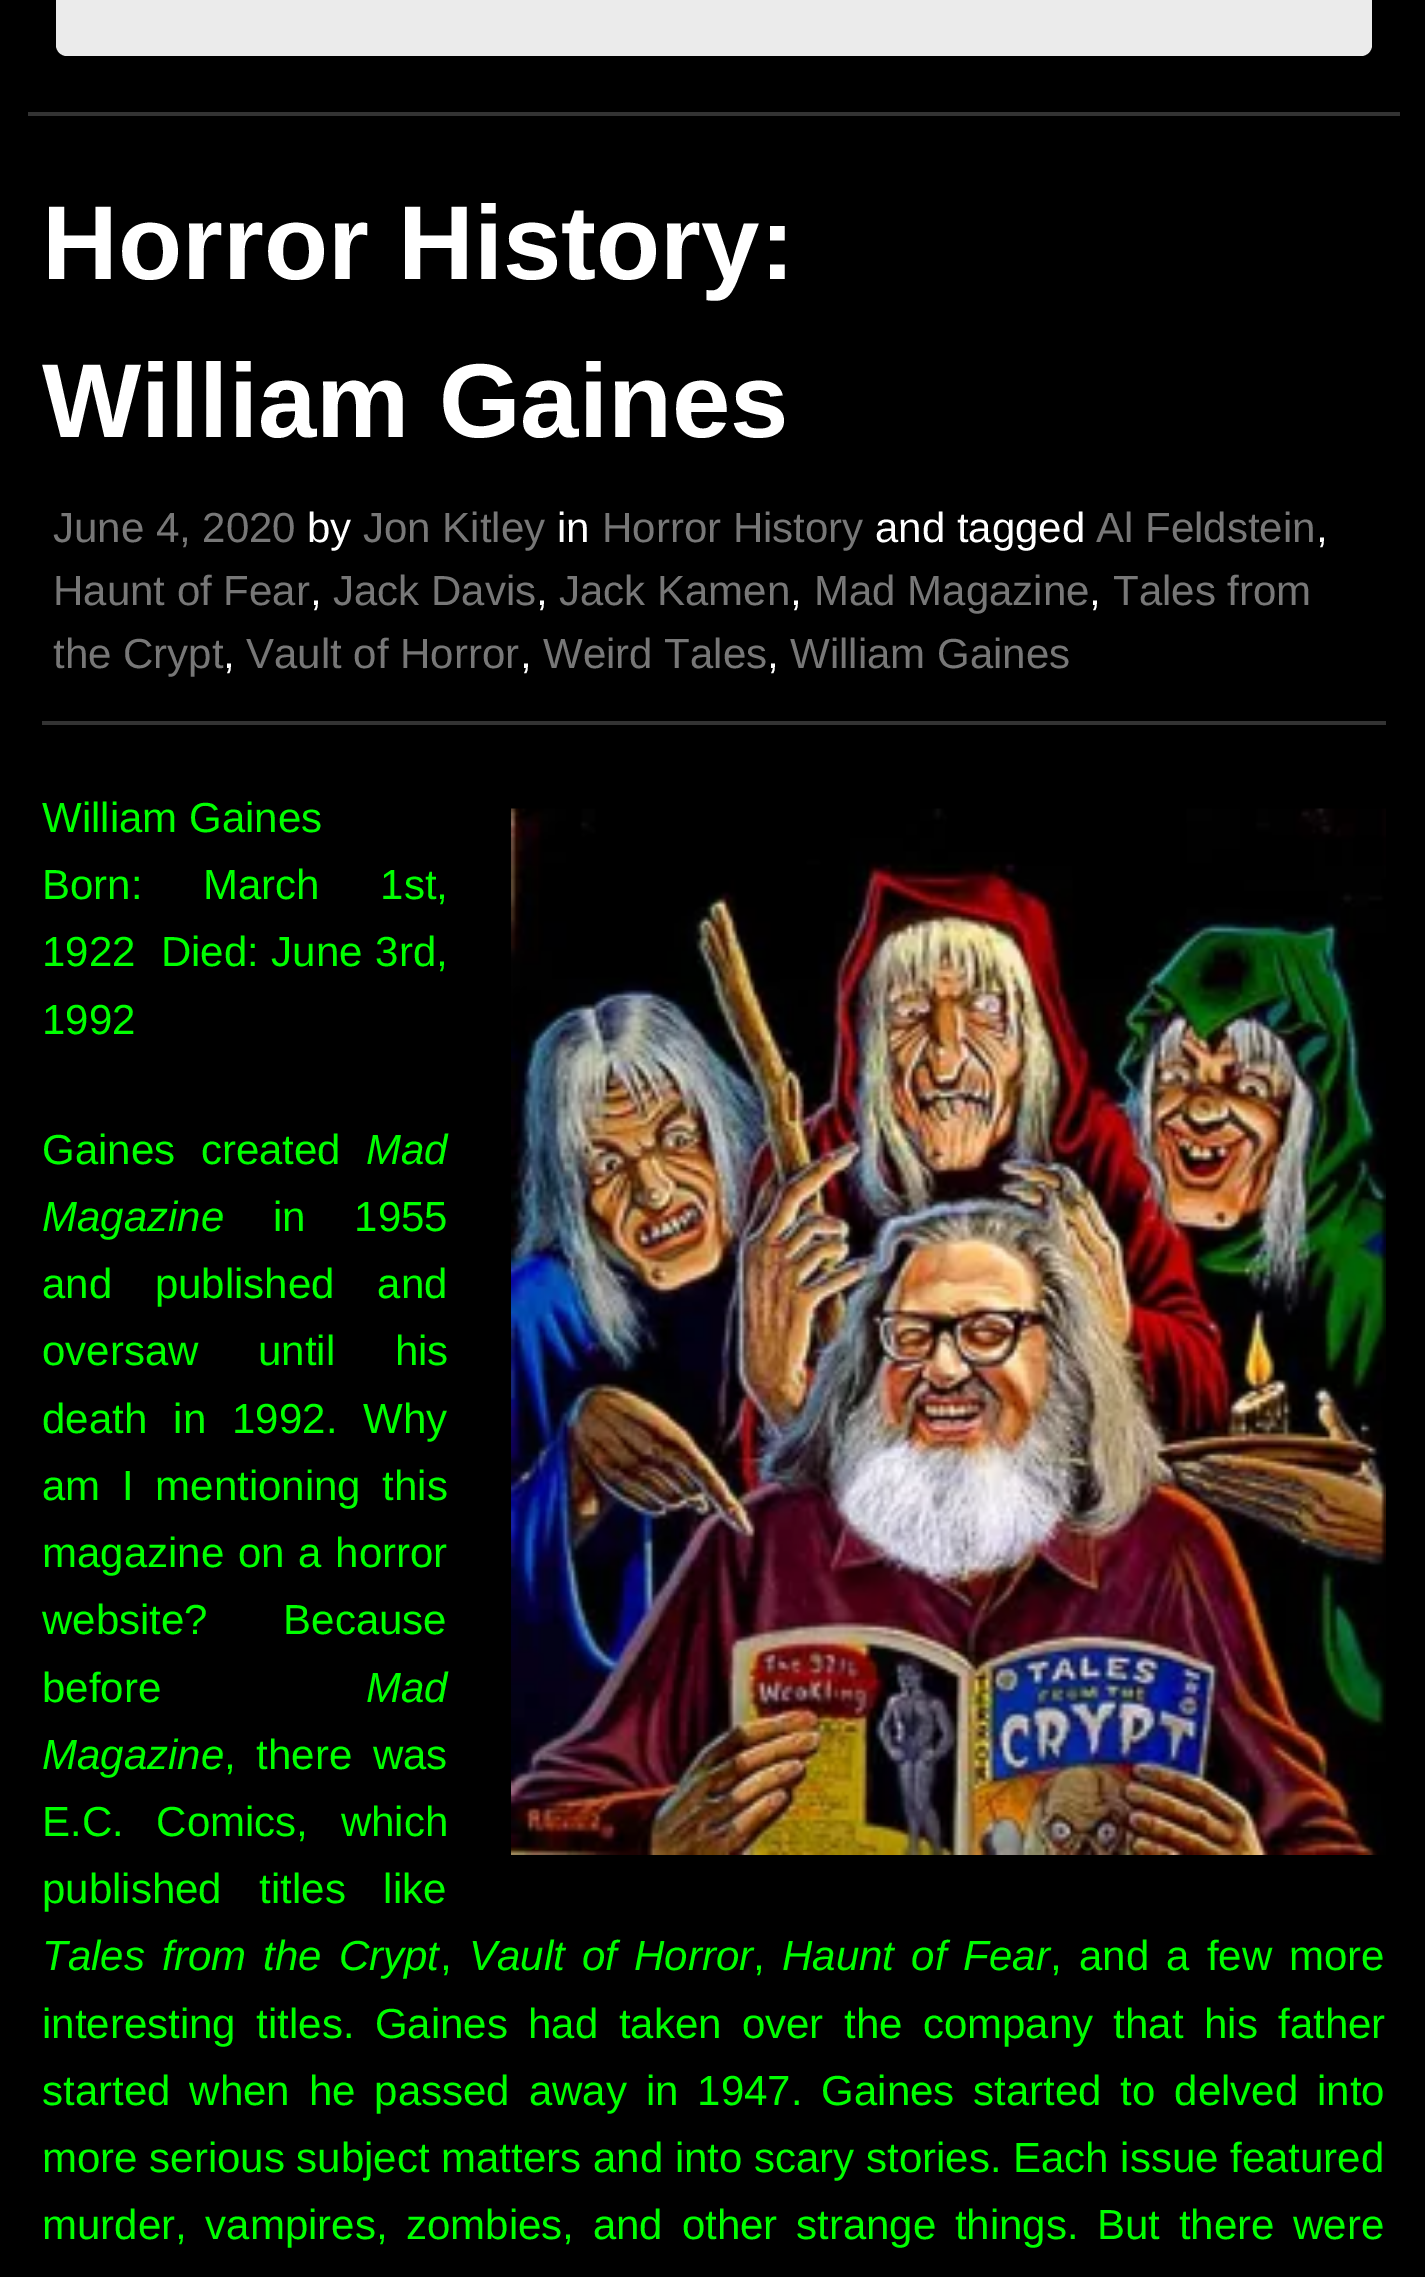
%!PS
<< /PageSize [1425 2277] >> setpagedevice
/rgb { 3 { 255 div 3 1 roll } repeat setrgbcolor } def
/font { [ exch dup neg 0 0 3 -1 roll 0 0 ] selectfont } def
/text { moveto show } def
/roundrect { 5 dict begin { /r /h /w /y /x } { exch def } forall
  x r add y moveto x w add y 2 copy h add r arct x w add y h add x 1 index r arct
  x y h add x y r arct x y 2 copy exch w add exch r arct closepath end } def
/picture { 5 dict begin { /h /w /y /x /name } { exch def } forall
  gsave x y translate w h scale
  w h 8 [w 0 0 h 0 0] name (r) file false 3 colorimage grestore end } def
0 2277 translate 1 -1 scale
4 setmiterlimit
0 0 0 rgb
0 0 1425 2277 rectfill
51 51 51 rgb
28 112 1372 4 rectfill
235 235 235 rgb
56 -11 1316 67 11 roundrect fill
51 51 51 rgb
42 721 1344 4 rectfill
(img_01.rgb) 511 808 875 1047 picture
/LiberationSans-Bold 105 font
255 255 255 rgb
(Horror History:) 42 279 text
(William Gaines) 42 437 text
/LiberationSans-Regular 42 font
119 119 119 rgb
(June 4, 2020) 53 542 text
255 255 255 rgb
(by) 307 542 text
119 119 119 rgb
(Jon Kitley) 363 542 text
255 255 255 rgb
(in) 557 542 text
119 119 119 rgb
(Horror History) 602 542 text
255 255 255 rgb
(and tagged) 875 542 text
119 119 119 rgb
(Al Feldstein) 1096 542 text
255 255 255 rgb
(,) 1316 542 text
119 119 119 rgb
(Haunt of Fear) 53 605 text
255 255 255 rgb
(,) 310 605 text
119 119 119 rgb
(Jack Davis) 333 605 text
255 255 255 rgb
(,) 536 605 text
119 119 119 rgb
(Jack Kamen) 559 605 text
255 255 255 rgb
(,) 790 605 text
119 119 119 rgb
(Mad Magazine) 814 605 text
255 255 255 rgb
(,) 1089 605 text
119 119 119 rgb
(Tales from) 1113 605 text
(the Crypt) 53 668 text
255 255 255 rgb
(,) 223 668 text
119 119 119 rgb
(Vault of Horror) 246 668 text
255 255 255 rgb
(,) 520 668 text
119 119 119 rgb
(Weird Tales) 543 668 text
255 255 255 rgb
(,) 767 668 text
119 119 119 rgb
(William Gaines) 790 668 text
0 255 0 rgb
(William Gaines) 42 832 text
42 899 moveto 49 0 32 (Born: March 1st,) widthshow
42 966 moveto 1 0 32 (1922  Died: June 3rd,) widthshow
(1992) 42 1034 text
42 1164 moveto 14 0 32 (Gaines created) widthshow
/LiberationSans-Italic 42 font
(Mad) 366 1164 text
(Magazine) 42 1231 text
/LiberationSans-Regular 42 font
273 1231 moveto 37 0 32 (in 1955) widthshow
42 1298 moveto 31 0 32 (and published and) widthshow
42 1365 moveto 48 0 32 (oversaw until his) widthshow
42 1433 moveto 14.5 0 32 (death in 1992. Why) widthshow
42 1500 moveto 10 0 32 (am I mentioning this) widthshow
42 1567 moveto 2 0 32 (magazine on a horror) widthshow
42 1634 moveto 64 0 32 (website? Because) widthshow
(before) 42 1702 text
/LiberationSans-Italic 42 font
(Mad) 366 1702 text
(Magazine) 42 1769 text
/LiberationSans-Regular 42 font
224 1769 moveto 9 0 32 (, there was) widthshow
42 1836 moveto 21 0 32 (E.C. Comics, which) widthshow
42 1903 moveto 26 0 32 (published titles like) widthshow
/LiberationSans-Italic 42 font
42 1970 moveto 5.5 0 32 (Tales from the Crypt) widthshow
/LiberationSans-Regular 42 font
(,) 440 1970 text
/LiberationSans-Italic 42 font
469 1970 moveto 5.5 0 32 (Vault of Horror) widthshow
/LiberationSans-Regular 42 font
(,) 753 1970 text
/LiberationSans-Italic 42 font
782 1970 moveto 5.5 0 32 (Haunt of Fear) widthshow
/LiberationSans-Regular 42 font
1050 1970 moveto 5.5 0 32 (, and a few more) widthshow
42 2038 moveto 8.75 0 32 (interesting titles. Gaines had taken over the company that his father) widthshow
42 2105 moveto 7.25 0 32 (started when he passed away in 1947. Gaines started to delved into) widthshow
(more serious subject matters and into scary stories. Each issue featured) 42 2172 text
42 2239 moveto 7 0 32 (murder, vampires, zombies, and other strange things. But there were) widthshow
showpage
